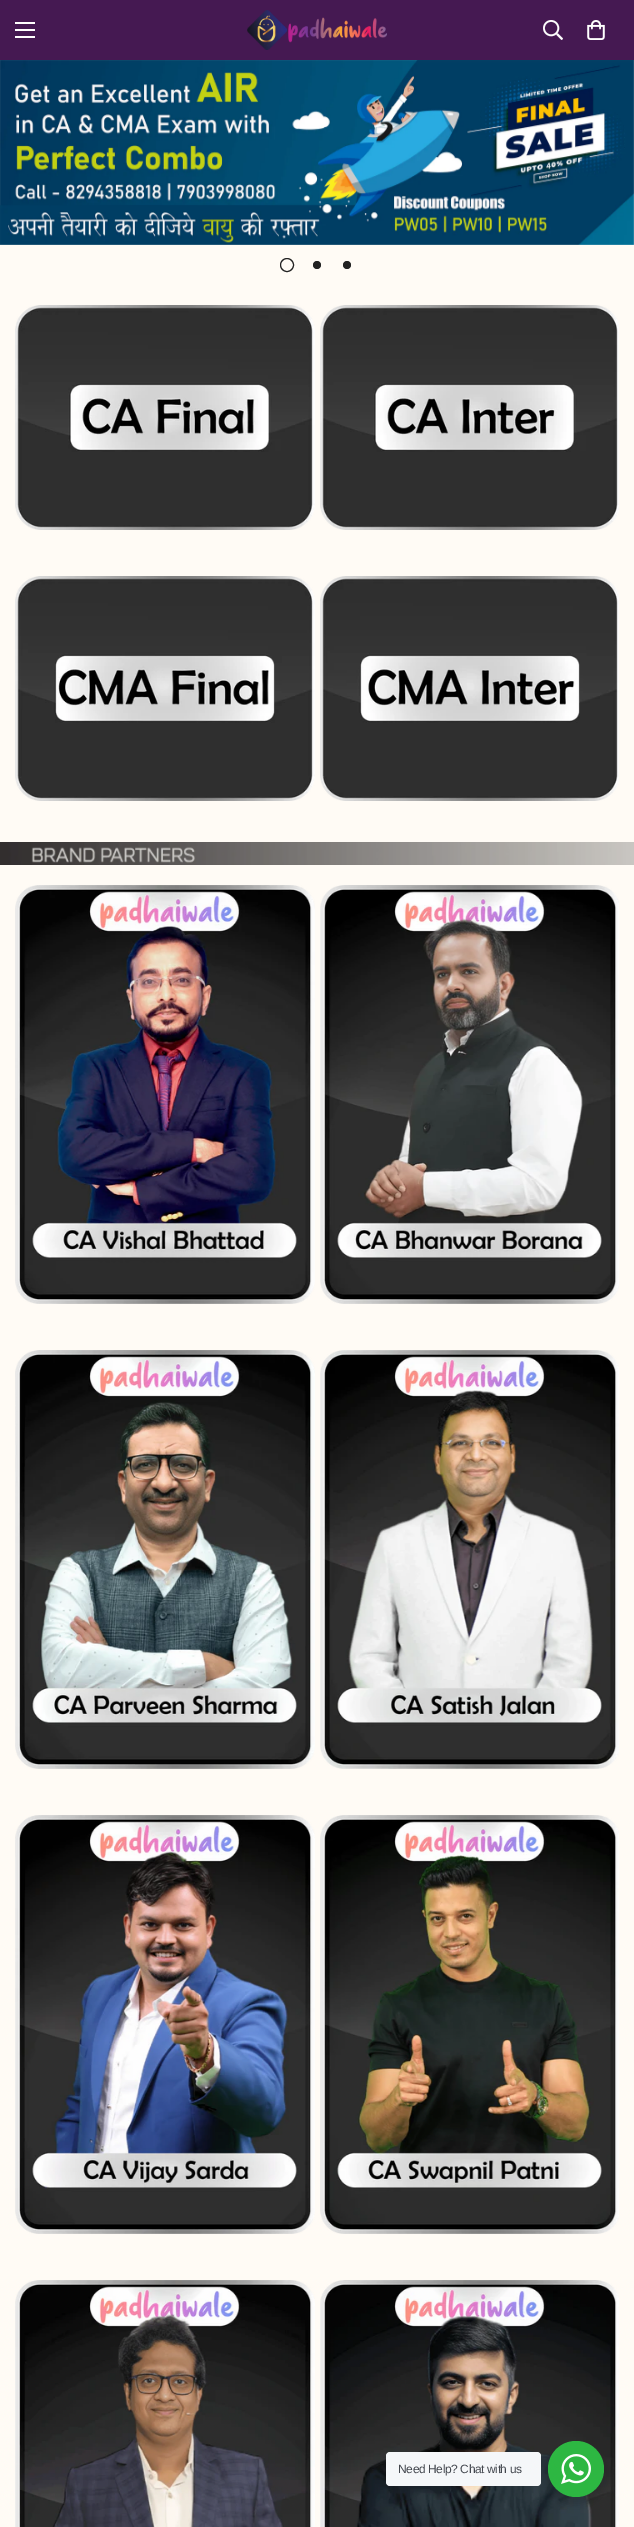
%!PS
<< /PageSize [634 2527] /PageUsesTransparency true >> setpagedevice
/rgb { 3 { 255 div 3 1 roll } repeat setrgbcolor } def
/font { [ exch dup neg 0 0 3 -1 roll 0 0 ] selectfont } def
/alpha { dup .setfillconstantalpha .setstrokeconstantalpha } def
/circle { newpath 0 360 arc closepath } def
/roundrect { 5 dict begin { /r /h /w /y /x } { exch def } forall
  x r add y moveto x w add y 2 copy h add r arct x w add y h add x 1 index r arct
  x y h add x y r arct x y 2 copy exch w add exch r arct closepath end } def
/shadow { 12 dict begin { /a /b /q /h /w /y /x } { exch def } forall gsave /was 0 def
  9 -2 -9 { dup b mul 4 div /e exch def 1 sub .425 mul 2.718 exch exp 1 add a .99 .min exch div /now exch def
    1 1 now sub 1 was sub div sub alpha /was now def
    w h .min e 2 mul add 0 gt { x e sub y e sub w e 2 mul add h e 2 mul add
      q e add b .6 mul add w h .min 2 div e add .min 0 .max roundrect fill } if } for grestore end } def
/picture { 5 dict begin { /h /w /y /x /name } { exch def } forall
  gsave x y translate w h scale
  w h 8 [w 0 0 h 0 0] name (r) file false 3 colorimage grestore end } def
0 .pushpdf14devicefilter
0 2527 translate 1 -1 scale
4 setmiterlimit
255 251 245 rgb
0 0 634 2527 rectfill
69 25 82 rgb
0 0 634 60 rectfill
255 255 255 rgb
15 29 20 2 rectfill
15 22 20 2 rectfill
15 36 20 2 rectfill
(img_01.rgb) 247 10 140 40 picture
(img_02.rgb) 543 20 20 20 picture
(img_03.rgb) 587 20 18 20 picture
(img_04.rgb) 0 60 634 185 picture
34 34 34 rgb
287 265 6.5 circle stroke
317 265 4 circle fill
347 265 4 circle fill
(img_05.rgb) 15 305 300 225 picture
(img_06.rgb) 320 305 299 225 picture
(img_07.rgb) 15 576 300 225 picture
(img_08.rgb) 320 576 299 225 picture
(img_09.rgb) 0 842 634 23 picture
(img_10.rgb) 15 885 300 419 picture
(img_11.rgb) 320 885 299 419 picture
(img_12.rgb) 15 1350 300 419 picture
(img_13.rgb) 320 1350 299 419 picture
(img_14.rgb) 15 1815 300 419 picture
(img_15.rgb) 320 1815 299 419 picture
(img_16.rgb) 15 2280 300 247 picture
(img_17.rgb) 320 2280 299 247 picture
0 0 0 rgb
546 2445 60 60 30 4 0.14 shadow
245 247 249 rgb
386 2452 155 34 4 roundrect fill
45 183 66 rgb
576 2469 28 circle fill
(img_18.rgb) 561 2454 30 30 picture
/LiberationSans-Regular 12 font
67 71 78 rgb
398 2473 moveto -0.4 0 (Need Help? Chat with us) ashow
.poppdf14devicefilter showpage
